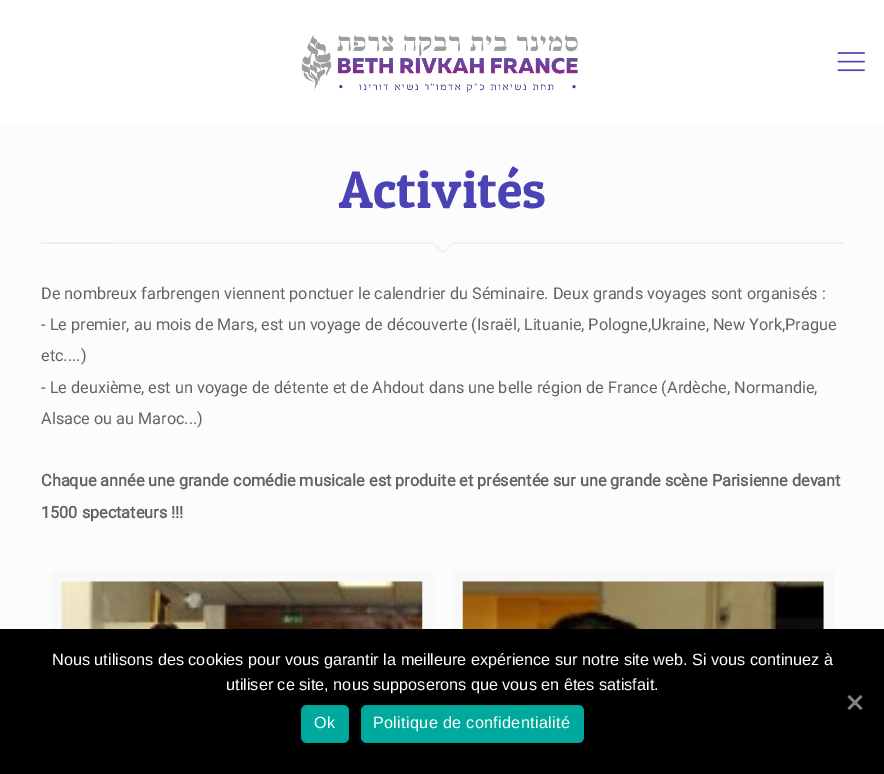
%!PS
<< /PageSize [884 774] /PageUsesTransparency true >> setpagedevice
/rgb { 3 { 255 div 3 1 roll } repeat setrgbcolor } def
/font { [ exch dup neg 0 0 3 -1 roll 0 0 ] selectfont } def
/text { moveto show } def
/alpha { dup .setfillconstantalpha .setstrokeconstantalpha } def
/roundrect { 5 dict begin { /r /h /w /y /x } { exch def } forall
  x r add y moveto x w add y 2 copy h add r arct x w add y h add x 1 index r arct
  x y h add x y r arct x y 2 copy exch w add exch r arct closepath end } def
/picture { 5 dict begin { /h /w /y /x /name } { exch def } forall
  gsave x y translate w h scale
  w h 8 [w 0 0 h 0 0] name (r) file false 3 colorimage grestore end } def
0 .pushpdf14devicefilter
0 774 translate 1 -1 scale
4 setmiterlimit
252 252 252 rgb
0 0 884 774 rectfill
255 255 255 rgb
0 0 884 125 rectfill
(img_01.rgb) 301 34 277 59 picture
(img_02.rgb) 837 52 28 20 picture
(img_03.rgb) 41 242 803 11 picture
248 248 248 rgb
10 setlinewidth
56 576 372 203 rectstroke
(img_04.rgb) 61 581 362 48 picture
458 576 371 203 rectstroke
(img_05.rgb) 462 581 362 48 picture
0 0 0 rgb
0 629 884 145 rectfill
128 128 128 rgb
860.5 695 moveto 2 2 rlineto -13 13 rlineto -2 -2 rlineto closepath fill
847.5 697 moveto 2 -2 rlineto 13 13 rlineto -2 2 rlineto closepath fill
0 169 157 rgb
301 705 48 38 6 roundrect fill
0.03 alpha
0 0 0 rgb
1 setlinewidth
301.5 705.5 47 37 rectstroke
1 alpha
0 169 157 rgb
361 705 223 38 6 roundrect fill
0.03 alpha
0 0 0 rgb
361.5 705.5 222 37 rectstroke
/PatuaOne-Regular 52.5 font
1 alpha
74 67 181 rgb
(Activités) 339 208 text
/Roboto-Regular 16.25 font
98 98 98 rgb
(De nombreux farbrengen viennent ponctuer le calendrier du Séminaire. Deux grands voyages sont organisés :) 41 299 text
(- Le premier, au mois de Mars, est un voyage de découverte \(Israël, Lituanie, Pologne,Ukraine, New York,Prague) 41 330 text
(etc....\)) 41 361 text
(- Le deuxième, est un voyage de détente et de Ahdout dans une belle région de France \(Ardèche, Normandie,) 41 393 text
(Alsace ou au Maroc...\)) 41 424 text
/Roboto-Bold 16.25 font
(Chaque année une grande comédie musicale est produite et présentée sur une grande scène Parisienne devant) 41 486 text
(1500 spectateurs !!!) 41 518 text
/LiberationSans-Regular 16.25 font
255 255 255 rgb
(Nous utilisons des cookies pour vous garantir la meilleure expérience sur notre site web. Si vous continuez à) 52 665 text
(utiliser ce site, nous supposerons que vous en êtes satisfait.) 226 690 text
314 728 moveto 0.3 0 (Ok) ashow
373 728 moveto 0.3 0 (Politique de confidentialité) ashow
.poppdf14devicefilter showpage
